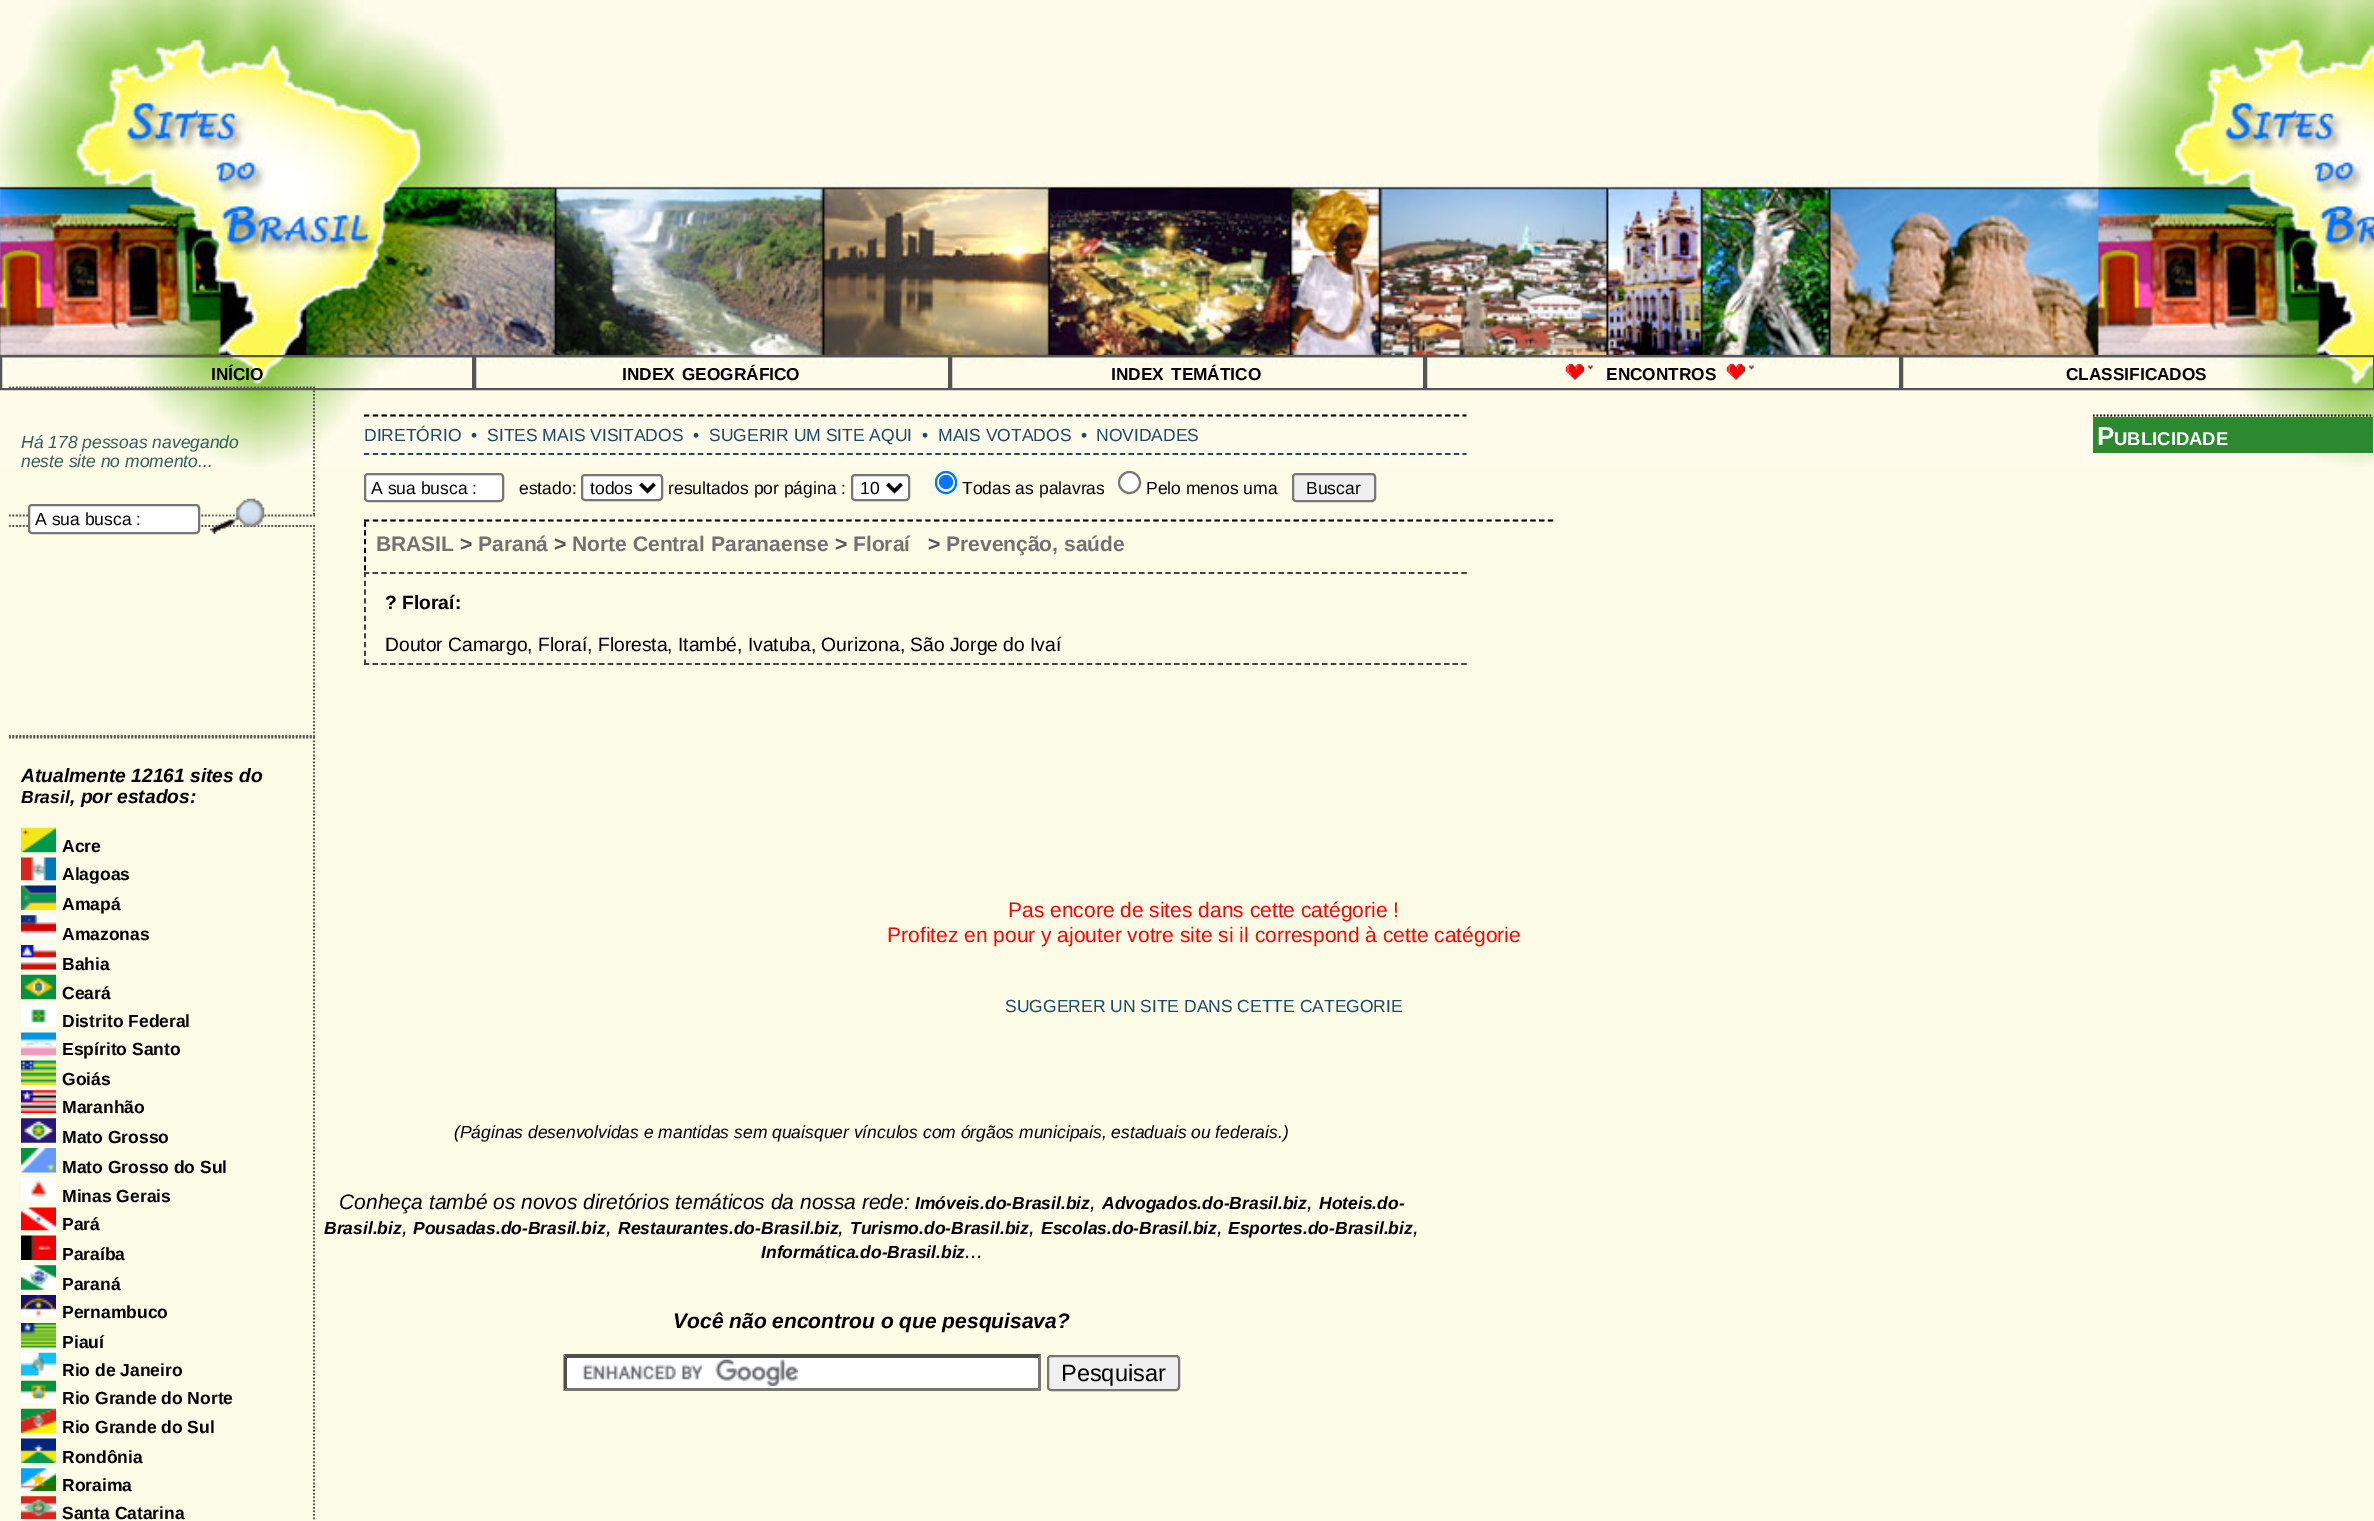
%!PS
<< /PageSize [2374 1521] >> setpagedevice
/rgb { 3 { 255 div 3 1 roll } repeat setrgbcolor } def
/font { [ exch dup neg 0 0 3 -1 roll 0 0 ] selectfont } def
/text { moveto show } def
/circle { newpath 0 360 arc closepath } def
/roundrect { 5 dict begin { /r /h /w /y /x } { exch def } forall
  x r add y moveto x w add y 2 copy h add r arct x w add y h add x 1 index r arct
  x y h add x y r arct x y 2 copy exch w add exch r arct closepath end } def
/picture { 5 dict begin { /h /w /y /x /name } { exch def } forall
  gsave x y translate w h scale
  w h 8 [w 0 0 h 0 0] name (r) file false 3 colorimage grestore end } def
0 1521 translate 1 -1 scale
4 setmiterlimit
252 251 229 rgb
0 0 2374 1521 rectfill
(img_01.rgb) 0 0 2374 467 picture
85 85 85 rgb
2 setlinewidth
1 356 472 33 rectstroke
475 356 474 33 rectstroke
951 356 473 33 rectstroke
1426 356 474 33 rectstroke
(img_02.rgb) 1565 363 28 17 picture
(img_03.rgb) 1726 363 28 17 picture
1902 356 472 33 rectstroke
1.8 setlinewidth
[1.75 1.75] 0 setdash
9 387.5 moveto 306 0 rlineto stroke
314 387 moveto 0 129 rlineto stroke
9 515.5 moveto 306 0 rlineto stroke
9 526 moveto 306 0 rlineto stroke
255 255 255 rgb
29 505 170 28 3 roundrect gsave fill grestore
118 118 118 rgb
2 setlinewidth
[] 0 setdash
stroke
(img_04.rgb) 210 498 55 36 picture
85 85 85 rgb
1.8 setlinewidth
[1.75 1.75] 0 setdash
314 525 moveto 0 212 rlineto stroke
9 736 moveto 306 0 rlineto stroke
9 737.5 moveto 306 0 rlineto stroke
314 737 moveto 0 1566 rlineto stroke
(img_05.rgb) 21 827 35 26 picture
(img_06.rgb) 21 857 35 24 picture
(img_07.rgb) 21 885 35 25 picture
(img_08.rgb) 21 915 35 25 picture
(img_09.rgb) 21 945 35 25 picture
(img_10.rgb) 21 974 35 26 picture
(img_11.rgb) 21 1004 35 24 picture
(img_12.rgb) 21 1032 35 24 picture
(img_13.rgb) 21 1060 35 25 picture
(img_14.rgb) 21 1090 35 23 picture
(img_15.rgb) 21 1118 35 25 picture
(img_16.rgb) 21 1148 35 25 picture
(img_17.rgb) 21 1177 35 26 picture
(img_18.rgb) 21 1207 35 24 picture
(img_19.rgb) 21 1235 35 25 picture
(img_20.rgb) 21 1265 35 25 picture
(img_21.rgb) 21 1295 35 23 picture
(img_22.rgb) 21 1323 35 25 picture
(img_23.rgb) 21 1352 35 24 picture
(img_24.rgb) 21 1380 35 24 picture
(img_25.rgb) 21 1408 35 26 picture
(img_26.rgb) 21 1438 35 25 picture
(img_27.rgb) 21 1468 35 23 picture
(img_28.rgb) 21 1496 35 23 picture
0 0 0 rgb
[5.25 3.54] 0 setdash
364 415.5 moveto 1102.5 0 rlineto stroke
28 73 104 rgb
364 454 moveto 1102.5 0 rlineto stroke
0 0 0 rgb
[5.25 3.52] 0 setdash
364 520.5 moveto 1190 0 rlineto stroke
255 255 255 rgb
365 474 138 27 3 roundrect gsave fill grestore
118 118 118 rgb
2 setlinewidth
[] 0 setdash
stroke
255 255 255 rgb
582 475 80 25 3 roundrect gsave fill grestore
118 118 118 rgb
stroke
0 0 0 rgb
3.5 setlinewidth
640.5 484 moveto 7 7 rlineto 7 -7 rlineto stroke
255 255 255 rgb
852 475 57 25 3 roundrect gsave fill grestore
118 118 118 rgb
2 setlinewidth
stroke
0 0 0 rgb
3.5 setlinewidth
887.5 484 moveto 7 7 rlineto 7 -7 rlineto stroke
255 255 255 rgb
936 472 20 21 10 roundrect gsave fill grestore
0 117 255 rgb
2 setlinewidth
stroke
946 482 7 circle fill
255 255 255 rgb
1129.5 482.5 10.5 circle gsave fill grestore
118 118 118 rgb
stroke
239 239 239 rgb
1293 474 82 27 3 roundrect gsave fill grestore
118 118 118 rgb
stroke
0 0 0 rgb
1.8 setlinewidth
[5.25 3.5] 0 setdash
365 521.5 moveto 0 49 rlineto stroke
63 65 69 rgb
[5.25 3.46] 0 setdash
364 573 moveto 1104 0 rlineto stroke
364 664 moveto 1104 0 rlineto stroke
[5.25 3.5] 0 setdash
365 572 moveto 0 93 rlineto stroke
255 255 255 rgb
564 1355 477 36 rectfill
(img_29.rgb) 582 1359 216 27 picture
79 79 79 rgb
564 1354 moveto 477 0 rlineto -3 4 rlineto -471 0 rlineto closepath fill
118 118 118 rgb
1041 1354.5 moveto 0 36.5 rlineto -3 -3 rlineto 0 -30 rlineto closepath fill
1041 1391 moveto -477 0 rlineto 3 -3 rlineto 471 0 rlineto closepath fill
79 79 79 rgb
563.5 1391 moveto 0 -36.5 rlineto 3.5 3.5 rlineto 0 30 rlineto closepath fill
239 239 239 rgb
1048 1356 131 34 3 roundrect gsave fill grestore
118 118 118 rgb
2 setlinewidth
[] 0 setdash
stroke
0 0 0 rgb
1.8 setlinewidth
[1.75 1.75] 0 setdash
2093 415.5 moveto 280 0 rlineto stroke
45 137 48 rgb
2093 417 280 36 rectfill
/LiberationSans-Bold 17.25 font
0 0 0 rgb
(INÍCIO) 211 380 text
(INDEX) 622 380 text
(GEOGRÁFICO) 682 380 text
(INDEX) 1111 380 text
(TEMÁTICO) 1171 380 text
(ENCONTROS) 1606 380 text
(CLASSIFICADOS) 2066 380 text
/LiberationSans-Italic 17.5 font
50 95 90 rgb
(Há 178 pessoas navegando) 21 448 text
(neste site no momento...) 21 467 text
/LiberationSans-Regular 17.5 font
0 0 0 rgb
(A sua busca :) 35 525 text
/LiberationSans-BoldItalic 19.25 font
(Atualmente 12161 sites do) 21 782 text
/LiberationSans-BoldItalic 17.5 font
(Brasil) 21 803 text
/LiberationSans-BoldItalic 19.25 font
(, por estados:) 70 803 text
/LiberationSans-Bold 17.5 font
(Acre) 62 852 text
(Alagoas) 62 880 text
(Amapá) 62 910 text
(Amazonas) 62 940 text
(Bahia) 62 970 text
(Ceará) 62 999 text
(Distrito Federal) 62 1027 text
(Espírito Santo) 62 1055 text
(Goiás) 62 1085 text
(Maranhão) 62 1113 text
(Mato Grosso) 62 1143 text
(Mato Grosso do Sul) 62 1173 text
(Minas Gerais) 62 1202 text
(Pará) 62 1230 text
(Paraíba) 62 1260 text
(Paraná) 62 1290 text
(Pernambuco) 62 1318 text
(Piauí) 62 1348 text
(Rio de Janeiro) 62 1376 text
(Rio Grande do Norte) 62 1404 text
(Rio Grande do Sul) 62 1433 text
(Rondônia) 62 1463 text
(Roraima) 62 1491 text
(Santa Catarina) 62 1519 text
/LiberationSans-Regular 17.5 font
28 73 104 rgb
(DIRETÓRIO) 364 441 text
(•) 471 441 text
(SITES MAIS VISITADOS) 487 441 text
(•) 693 441 text
(SUGERIR UM SITE AQUI) 709 441 text
(•) 922 441 text
(MAIS VOTADOS) 938 441 text
(•) 1081 441 text
(NOVIDADES) 1096 441 text
0 0 0 rgb
(A sua busca :) 371 494 text
(estado:) 519 494 text
(todos) 590 494 text
(resultados por página :) 668 494 text
(10) 860 494 text
(Todas as palavras) 962 494 text
(Pelo menos uma) 1146 494 text
(Buscar) 1306 494 text
/LiberationSans-Bold 21 font
113 113 113 rgb
(BRASIL) 376 551 text
84 83 83 rgb
(>) 460 551 text
113 113 113 rgb
(Paraná) 478 551 text
84 83 83 rgb
(>) 554 551 text
113 113 113 rgb
(Norte Central Paranaense) 572 551 text
84 83 83 rgb
(>) 835 551 text
113 113 113 rgb
(Floraí) 853 551 text
84 83 83 rgb
(>) 928 551 text
113 113 113 rgb
(Prevenção, saúde) 946 551 text
/LiberationSans-Bold 19.25 font
0 0 0 rgb
(? Floraí:) 385 609 text
/LiberationSans-Regular 19.25 font
(Doutor Camargo, Floraí, Floresta, Itambé, Ivatuba, Ourizona, São Jorge do Ivaí) 385 651 text
/LiberationSans-Regular 21 font
255 0 0 rgb
(Pas encore de sites dans cette catégorie !) 1008 917 text
(Profitez en pour y ajouter votre site si il correspond à cette catégorie) 887 942 text
/LiberationSans-Regular 17.5 font
28 73 104 rgb
(SUGGERER UN SITE DANS CETTE CATEGORIE) 1005 1012 text
/LiberationSans-Italic 17.5 font
0 0 0 rgb
(\(Páginas desenvolvidas e mantidas sem quaisquer vínculos com órgãos municipais, estaduais ou federais.\)) 454 1138 text
/LiberationSans-Italic 21 font
(Conheça també os novos diretórios temáticos da nossa rede:) 339 1209 text
/LiberationSans-BoldItalic 17.5 font
(Imóveis.do-Brasil.biz) 915 1209 text
/LiberationSans-Italic 21 font
(,) 1090 1209 text
/LiberationSans-BoldItalic 17.5 font
(Advogados.do-Brasil.biz) 1102 1209 text
/LiberationSans-Italic 21 font
(,) 1307 1209 text
/LiberationSans-BoldItalic 17.5 font
(Hoteis.do-) 1319 1209 text
(Brasil.biz) 324 1234 text
/LiberationSans-Italic 21 font
(,) 402 1234 text
/LiberationSans-BoldItalic 17.5 font
(Pousadas.do-Brasil.biz) 413 1234 text
/LiberationSans-Italic 21 font
(,) 606 1234 text
/LiberationSans-BoldItalic 17.5 font
(Restaurantes.do-Brasil.biz) 618 1234 text
/LiberationSans-Italic 21 font
(,) 838 1234 text
/LiberationSans-BoldItalic 17.5 font
(Turismo.do-Brasil.biz) 850 1234 text
/LiberationSans-Italic 21 font
(,) 1029 1234 text
/LiberationSans-BoldItalic 17.5 font
(Escolas.do-Brasil.biz) 1041 1234 text
/LiberationSans-Italic 21 font
(,) 1217 1234 text
/LiberationSans-BoldItalic 17.5 font
(Esportes.do-Brasil.biz) 1228 1234 text
/LiberationSans-Italic 21 font
(,) 1413 1234 text
/LiberationSans-BoldItalic 17.5 font
(Informática.do-Brasil.biz) 761 1258 text
/LiberationSans-Italic 21 font
(...) 965 1258 text
/LiberationSans-BoldItalic 21 font
(Você não encontrou o que pesquisava?) 673 1328 text
/LiberationSans-Regular 23.5 font
(Pesquisar) 1061 1381 text
/LiberationSans-Bold 26 font
255 255 255 rgb
(P) 2097 445 text
/LiberationSans-Bold 18.5 font
(UBLICIDADE) 2114 445 text
showpage
